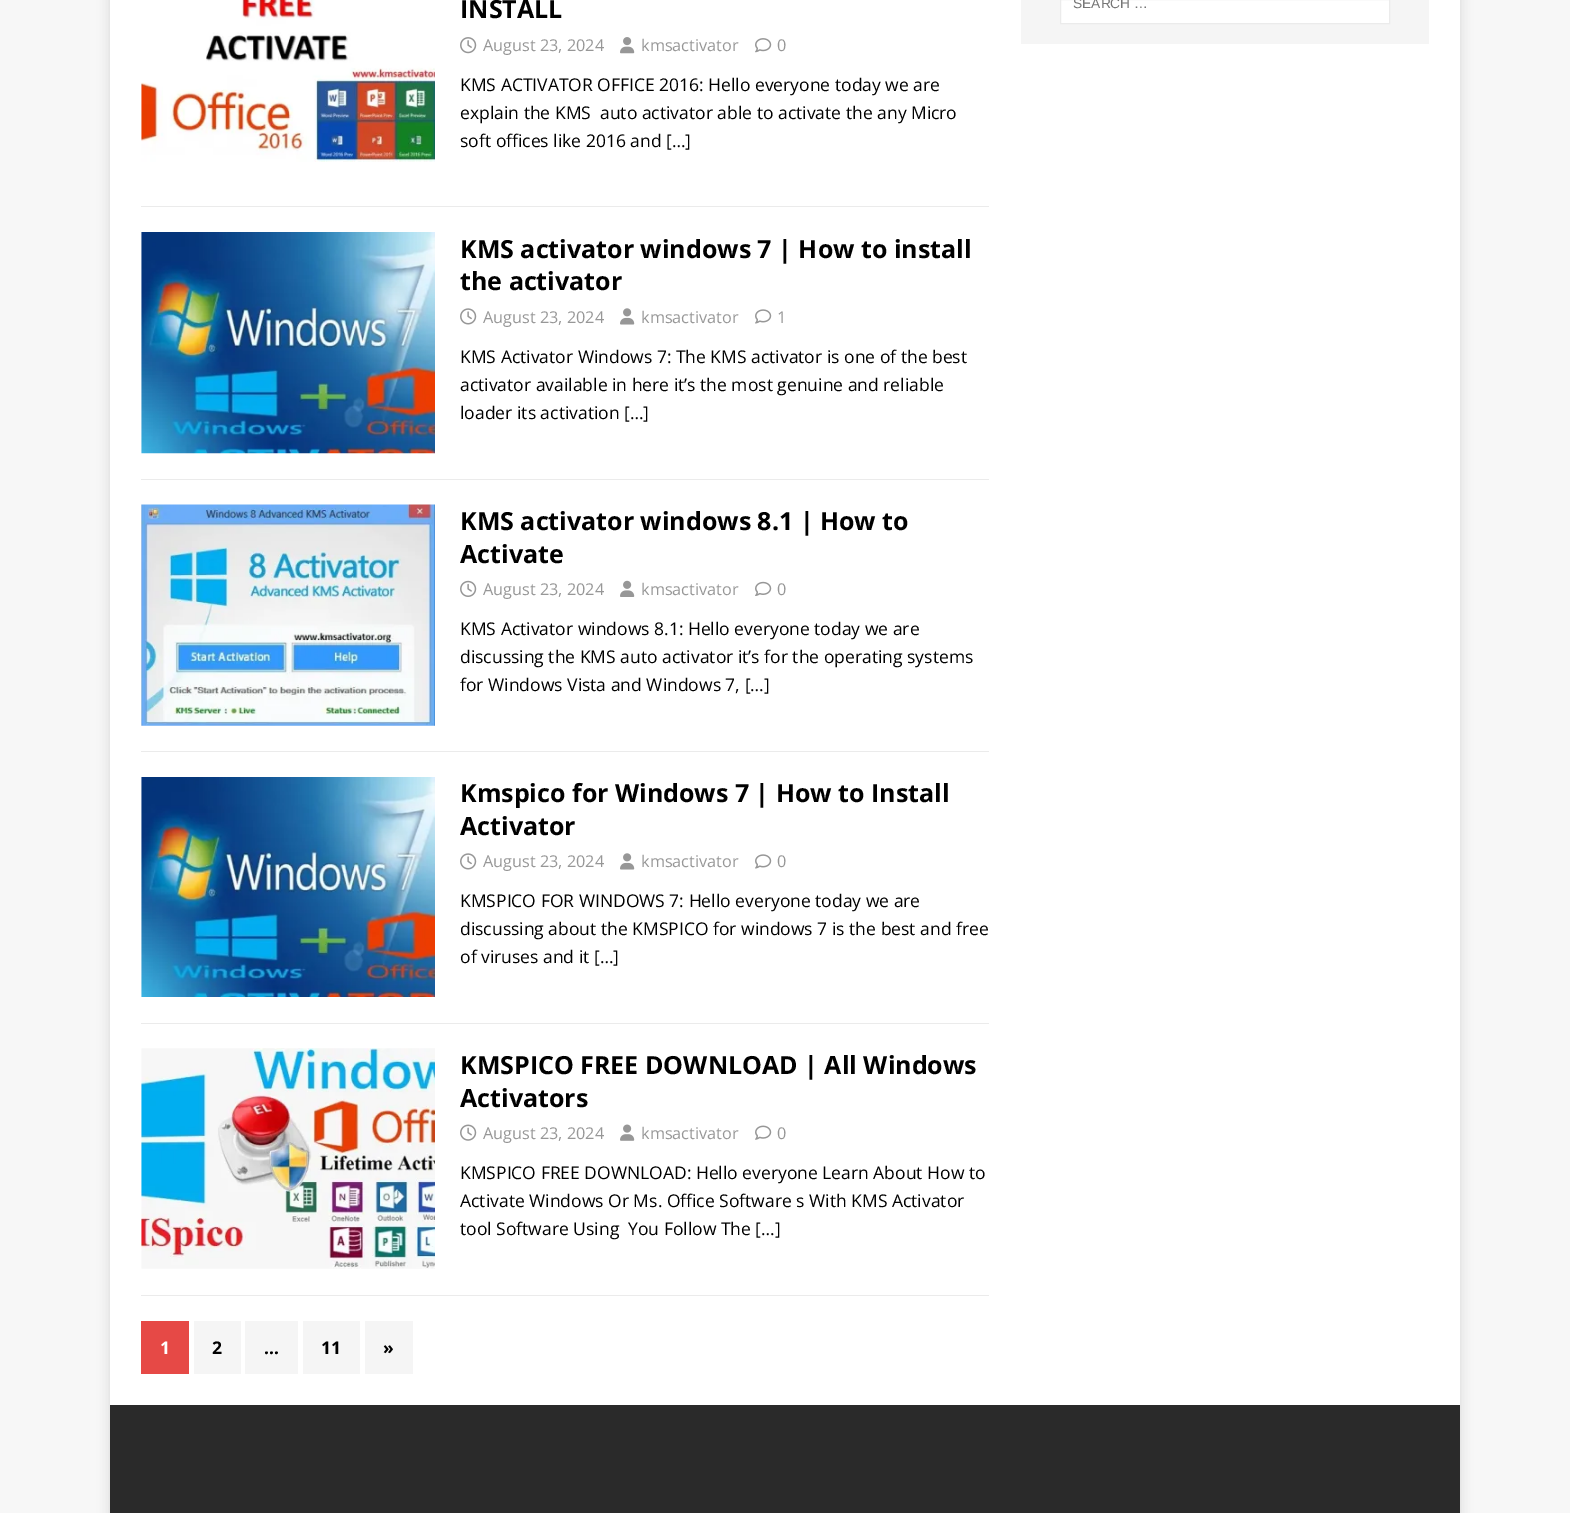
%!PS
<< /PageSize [1570 1513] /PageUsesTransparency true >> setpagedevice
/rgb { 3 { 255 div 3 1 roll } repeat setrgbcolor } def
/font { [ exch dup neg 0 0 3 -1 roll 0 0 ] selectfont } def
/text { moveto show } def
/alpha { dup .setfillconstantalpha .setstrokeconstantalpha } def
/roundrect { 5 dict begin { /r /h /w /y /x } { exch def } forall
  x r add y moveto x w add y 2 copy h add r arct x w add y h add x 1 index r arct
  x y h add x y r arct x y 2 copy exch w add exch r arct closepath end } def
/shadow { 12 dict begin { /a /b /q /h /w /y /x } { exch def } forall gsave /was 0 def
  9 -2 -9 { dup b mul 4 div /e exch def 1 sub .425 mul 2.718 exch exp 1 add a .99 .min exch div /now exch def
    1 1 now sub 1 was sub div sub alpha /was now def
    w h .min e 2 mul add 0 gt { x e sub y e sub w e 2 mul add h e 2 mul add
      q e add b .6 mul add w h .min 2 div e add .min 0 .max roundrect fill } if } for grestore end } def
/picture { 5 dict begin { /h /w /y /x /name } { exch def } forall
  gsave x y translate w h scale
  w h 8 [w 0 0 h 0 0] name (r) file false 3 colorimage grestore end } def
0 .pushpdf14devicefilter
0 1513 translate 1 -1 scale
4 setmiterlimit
247 247 247 rgb
0 0 1570 1513 rectfill
50 50 50 rgb
110 -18 1350 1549 0 6 0.17 shadow
255 255 255 rgb
110 0 1350 1405 rectfill
235 235 235 rgb
141 206 848 1 rectfill
(img_01.rgb) 141 0 294 162 picture
(img_02.rgb) 460 37 17 17 picture
(img_03.rgb) 620 37 15 17 picture
(img_04.rgb) 755 38 17 15 picture
141 479 848 1 rectfill
(img_05.rgb) 141 232 294 222 picture
(img_06.rgb) 460 308 17 17 picture
(img_07.rgb) 620 308 15 17 picture
(img_08.rgb) 755 309 17 15 picture
141 751 848 1 rectfill
(img_09.rgb) 141 504 294 222 picture
(img_10.rgb) 460 580 17 17 picture
(img_11.rgb) 620 580 15 17 picture
(img_12.rgb) 755 581 17 15 picture
141 1023 848 1 rectfill
(img_13.rgb) 141 777 294 220 picture
(img_06.rgb) 460 853 17 17 picture
(img_07.rgb) 620 853 15 17 picture
(img_08.rgb) 755 854 17 15 picture
141 1295 848 1 rectfill
(img_14.rgb) 141 1048 294 221 picture
(img_15.rgb) 460 1124 17 17 picture
(img_16.rgb) 620 1124 15 17 picture
(img_17.rgb) 755 1125 17 15 picture
230 73 70 rgb
141 1321 48 53 rectfill
245 245 245 rgb
194 1321 47 53 rectfill
245 1321 53 53 rectfill
303 1321 57 53 rectfill
365 1321 48 53 rectfill
1021 0 408 44 rectfill
255 255 255 rgb
1060.5 -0.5 moveto 329 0 rlineto 0 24 rlineto -329 0 rlineto closepath gsave fill grestore
235 235 235 rgb
stroke
42 42 42 rgb
110 1405 1350 108 rectfill
/OpenSans-Bold 25 font
0 0 0 rgb
(INSTALL) 460 18 text
/OpenSans-Regular 16.25 font
151 151 151 rgb
(August 23, 2024) 483 51 text
(kmsactivator) 641 51 text
(0) 777 51 text
/OpenSans-Regular 17.5 font
0 0 0 rgb
(KMS ACTIVATOR OFFICE 2016: Hello everyone today we are) 460 91 text
(explain the KMS  auto activator able to activate the any Micro) 460 119 text
(soft offices like 2016 and […]) 460 147 text
/OpenSans-Bold 25 font
(KMS activator windows 7 | How to install) 460 258 text
(the activator) 460 290 text
/OpenSans-Regular 16.25 font
151 151 151 rgb
(August 23, 2024) 483 323 text
(kmsactivator) 641 323 text
(1) 777 323 text
/OpenSans-Regular 17.5 font
0 0 0 rgb
(KMS Activator Windows 7: The KMS activator is one of the best) 460 363 text
(activator available in here it’s the most genuine and reliable) 460 391 text
(loader its activation […]) 460 419 text
/OpenSans-Bold 25 font
(KMS activator windows 8.1 | How to) 460 530 text
(Activate) 460 563 text
/OpenSans-Regular 16.25 font
151 151 151 rgb
(August 23, 2024) 483 595 text
(kmsactivator) 641 595 text
(0) 777 595 text
/OpenSans-Regular 17.5 font
0 0 0 rgb
(KMS Activator windows 8.1: Hello everyone today we are) 460 635 text
(discussing the KMS auto activator it’s for the operating systems) 460 663 text
(for Windows Vista and Windows 7, […]) 460 691 text
/OpenSans-Bold 25 font
(Kmspico for Windows 7 | How to Install) 460 802 text
(Activator) 460 835 text
/OpenSans-Regular 16.25 font
151 151 151 rgb
(August 23, 2024) 483 867 text
(kmsactivator) 641 867 text
(0) 777 867 text
/OpenSans-Regular 17.5 font
0 0 0 rgb
(KMSPICO FOR WINDOWS 7: Hello everyone today we are) 460 907 text
(discussing about the KMSPICO for windows 7 is the best and free) 460 935 text
(of viruses and it […]) 460 963 text
/OpenSans-Bold 25 font
(KMSPICO FREE DOWNLOAD | All Windows) 460 1074 text
(Activators) 460 1107 text
/OpenSans-Regular 16.25 font
151 151 151 rgb
(August 23, 2024) 483 1139 text
(kmsactivator) 641 1139 text
(0) 777 1139 text
/OpenSans-Regular 17.5 font
0 0 0 rgb
(KMSPICO FREE DOWNLOAD: Hello everyone Learn About How to) 460 1179 text
(Activate Windows Or Ms. Office Software s With KMS Activator) 460 1207 text
(tool Software Using  You Follow The […]) 460 1235 text
/OpenSans-Bold 17.5 font
255 255 255 rgb
(1) 160 1354 text
0 0 0 rgb
(2) 212 1354 text
(…) 264 1354 text
(11) 321 1354 text
(») 383 1354 text
/LiberationSans-Regular 13.75 font
117 117 117 rgb
(SEARCH …) 1073 8 text
.poppdf14devicefilter showpage
